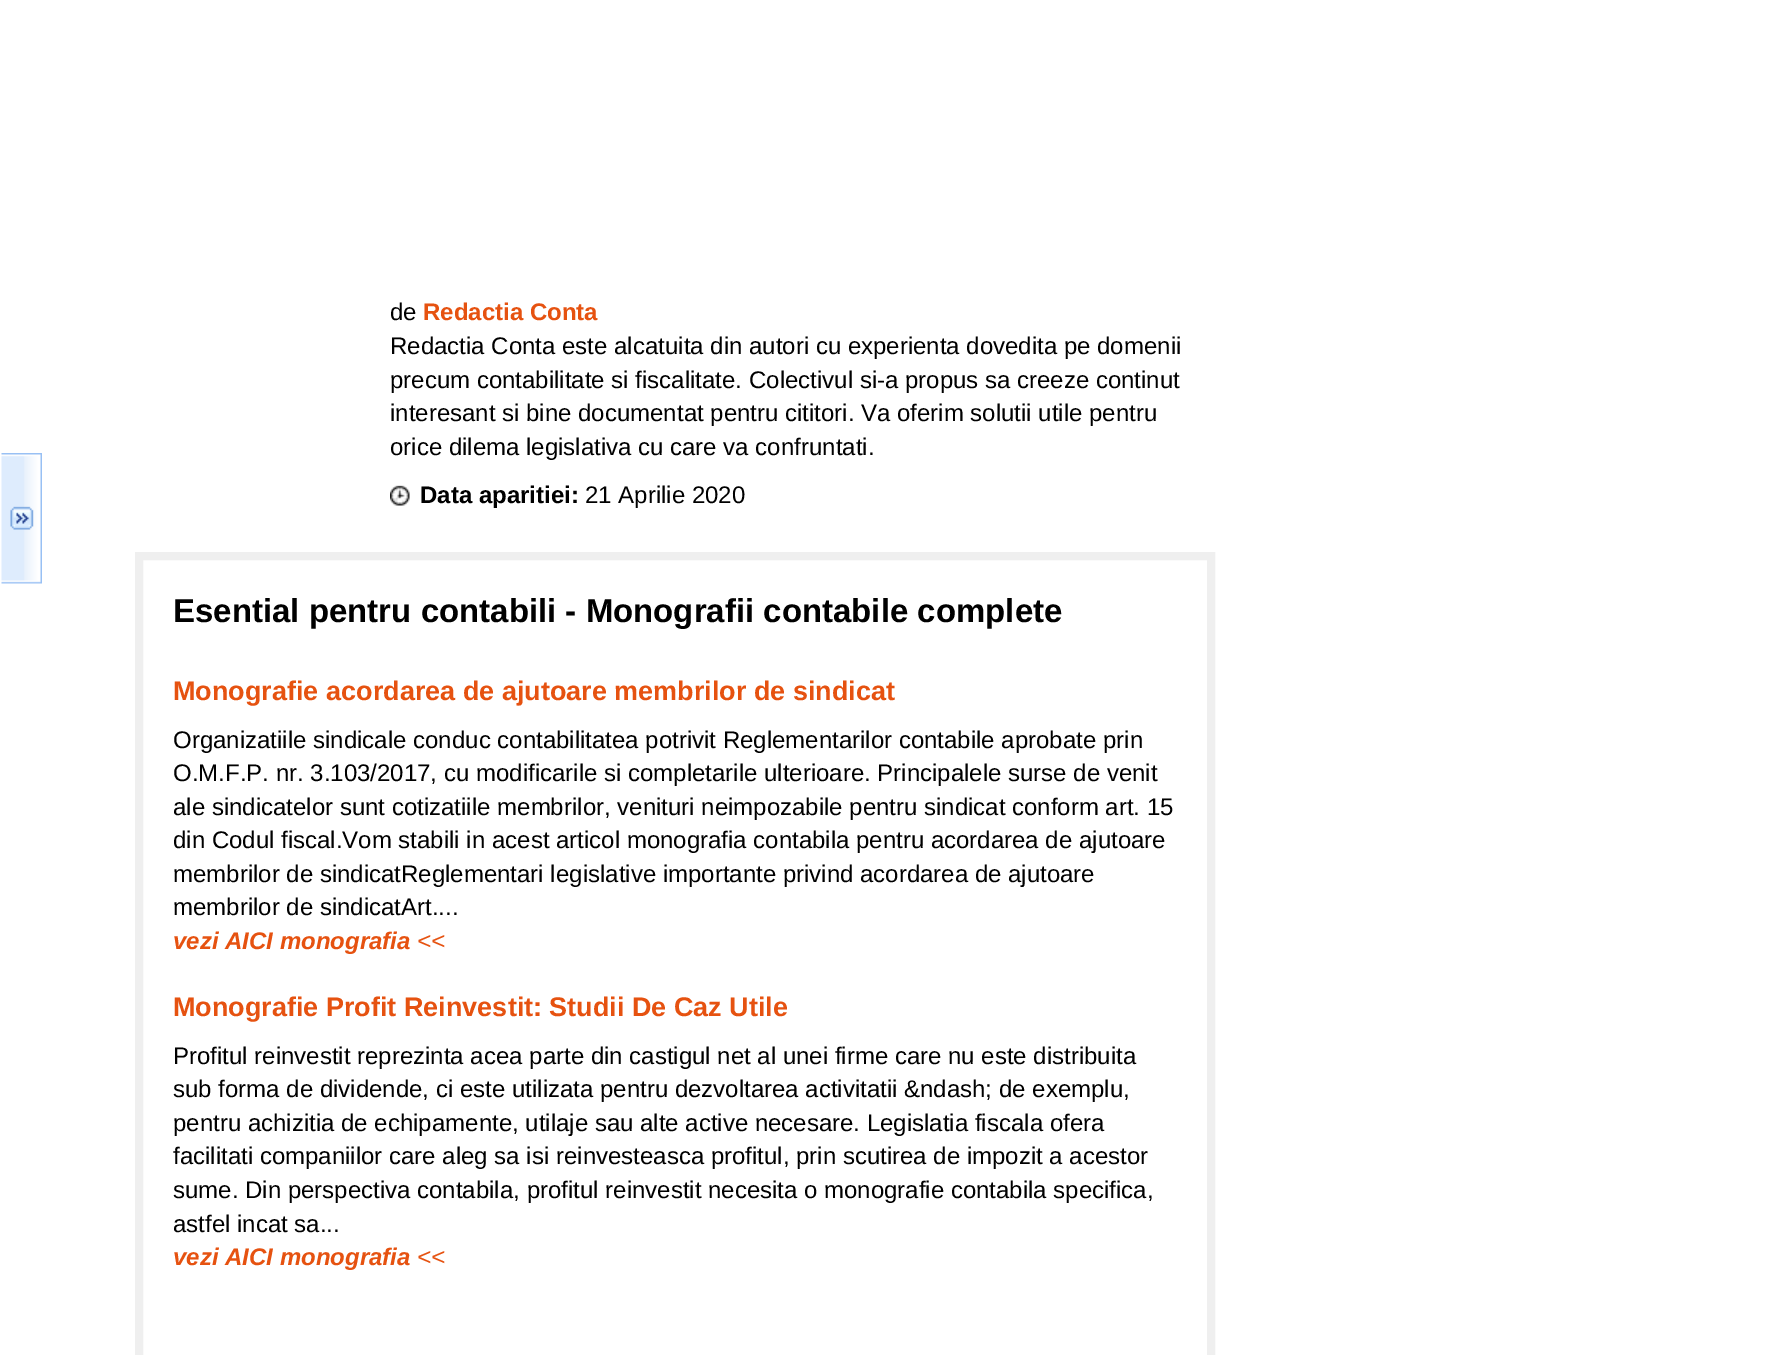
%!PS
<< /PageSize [1770 1355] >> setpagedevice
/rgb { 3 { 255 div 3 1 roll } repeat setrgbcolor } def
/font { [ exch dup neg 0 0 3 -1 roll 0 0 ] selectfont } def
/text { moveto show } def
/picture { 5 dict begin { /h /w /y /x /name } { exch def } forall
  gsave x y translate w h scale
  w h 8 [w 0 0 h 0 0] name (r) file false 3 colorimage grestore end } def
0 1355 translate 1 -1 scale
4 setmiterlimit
255 255 255 rgb
0 0 1770 1355 rectfill
(img_01.rgb) 1 453 41 131 picture
(img_02.rgb) 390 485 20 21 picture
239 239 239 rgb
8 setlinewidth
139 556 1072 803 rectstroke
/LiberationSans-Regular 24 font
0 0 0 rgb
(de) 390 320 text
/LiberationSans-Bold 24 font
230 82 16 rgb
(Redactia Conta) 423 320 text
/LiberationSans-Regular 24 font
0 0 0 rgb
(Redactia Conta este alcatuita din autori cu experienta dovedita pe domenii) 390 354 text
(precum contabilitate si fiscalitate. Colectivul si-a propus sa creeze continut) 390 388 text
(interesant si bine documentat pentru cititori. Va oferim solutii utile pentru) 390 421 text
(orice dilema legislativa cu care va confruntati.) 390 455 text
/LiberationSans-Bold 24 font
(Data aparitiei:) 420 503 text
/LiberationSans-Regular 24 font
(21 Aprilie 2020) 585 503 text
/LiberationSans-Bold 33 font
(Esential pentru contabili - Monografii contabile complete) 173 622 text
/LiberationSans-Bold 27 font
230 82 16 rgb
(Monografie acordarea de ajutoare membrilor de sindicat) 173 700 text
/LiberationSans-Regular 24 font
0 0 0 rgb
(Organizatiile sindicale conduc contabilitatea potrivit Reglementarilor contabile aprobate prin) 173 748 text
(O.M.F.P. nr. 3.103/2017, cu modificarile si completarile ulterioare. Principalele surse de venit) 173 781 text
(ale sindicatelor sunt cotizatiile membrilor, venituri neimpozabile pentru sindicat conform art. 15) 173 815 text
(din Codul fiscal.Vom stabili in acest articol monografia contabila pentru acordarea de ajutoare) 173 848 text
(membrilor de sindicatReglementari legislative importante privind acordarea de ajutoare) 173 882 text
(membrilor de sindicatArt....) 173 915 text
/LiberationSans-BoldItalic 24 font
230 82 16 rgb
(vezi AICI monografia) 173 949 text
/LiberationSans-Italic 24 font
(<<) 417 949 text
/LiberationSans-Bold 27 font
(Monografie Profit Reinvestit: Studii De Caz Utile) 173 1016 text
/LiberationSans-Regular 24 font
0 0 0 rgb
(Profitul reinvestit reprezinta acea parte din castigul net al unei firme care nu este distribuita) 173 1064 text
(sub forma de dividende, ci este utilizata pentru dezvoltarea activitatii &ndash; de exemplu,) 173 1097 text
(pentru achizitia de echipamente, utilaje sau alte active necesare. Legislatia fiscala ofera) 173 1131 text
(facilitati companiilor care aleg sa isi reinvesteasca profitul, prin scutirea de impozit a acestor) 173 1164 text
(sume. Din perspectiva contabila, profitul reinvestit necesita o monografie contabila specifica,) 173 1198 text
(astfel incat sa...) 173 1232 text
/LiberationSans-BoldItalic 24 font
230 82 16 rgb
(vezi AICI monografia) 173 1265 text
/LiberationSans-Italic 24 font
(<<) 417 1265 text
showpage
